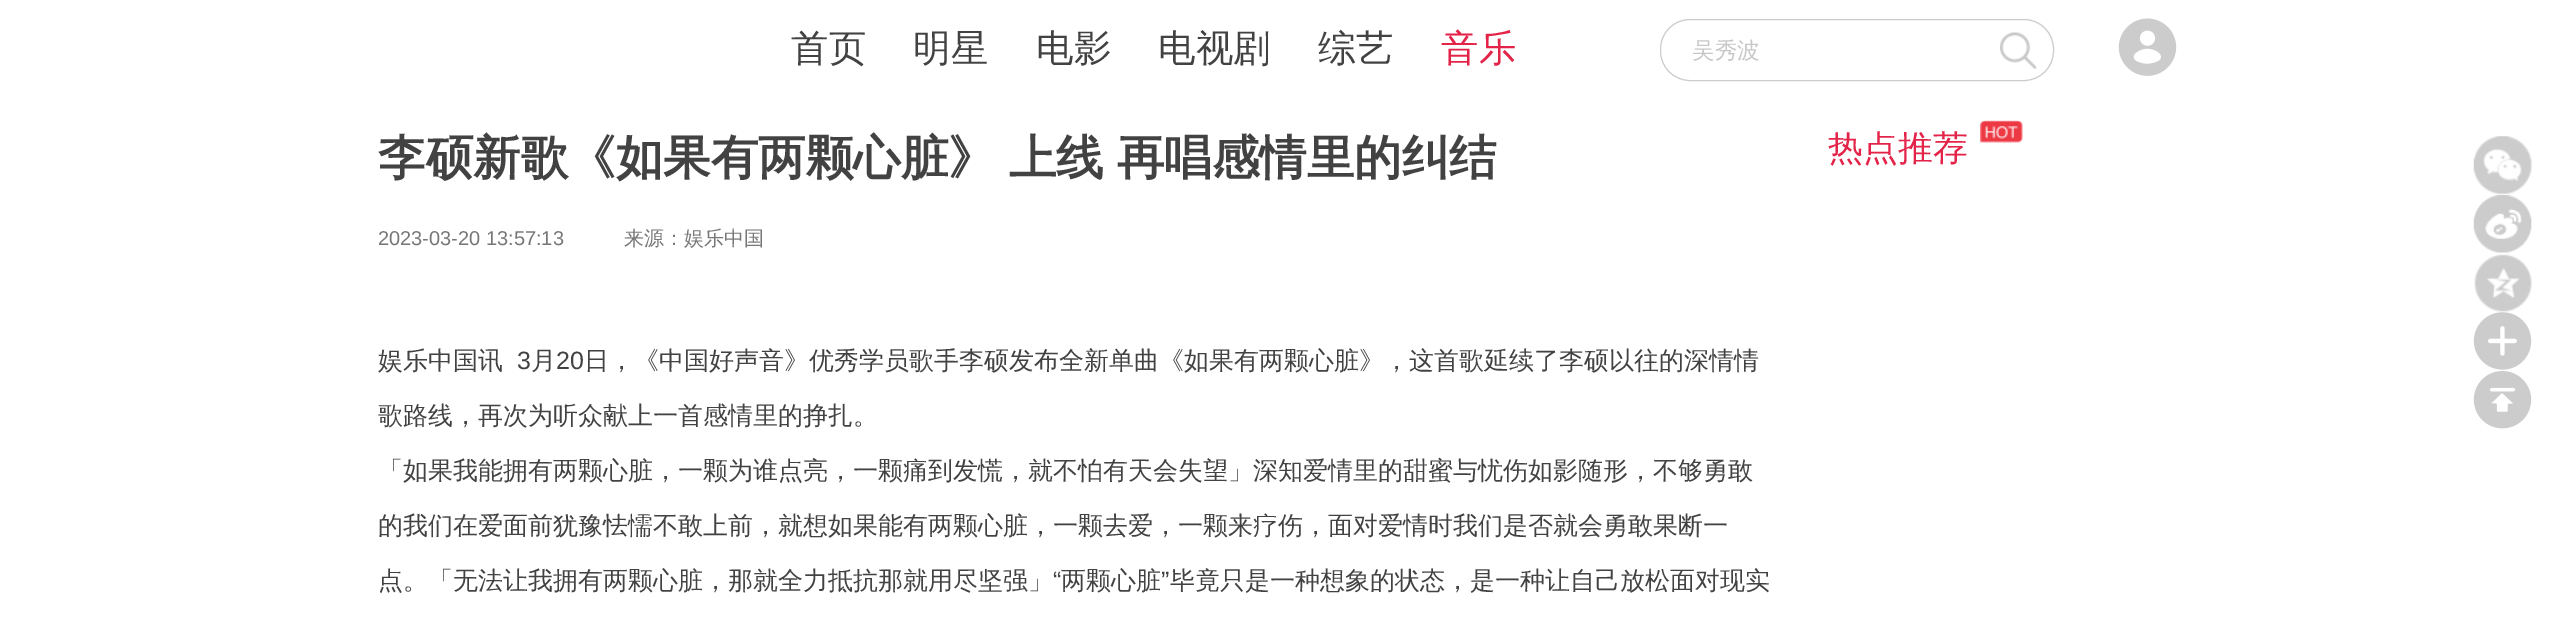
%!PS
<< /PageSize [2556 628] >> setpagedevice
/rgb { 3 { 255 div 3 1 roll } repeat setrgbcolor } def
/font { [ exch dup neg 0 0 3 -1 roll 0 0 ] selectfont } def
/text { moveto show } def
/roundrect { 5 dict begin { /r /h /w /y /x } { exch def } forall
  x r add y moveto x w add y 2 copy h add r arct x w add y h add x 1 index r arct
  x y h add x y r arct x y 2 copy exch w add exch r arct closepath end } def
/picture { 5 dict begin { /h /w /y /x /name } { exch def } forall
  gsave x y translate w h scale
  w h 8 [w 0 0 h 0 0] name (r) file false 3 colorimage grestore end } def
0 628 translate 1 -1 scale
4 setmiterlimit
255 255 255 rgb
0 0 2556 628 rectfill
204 204 204 rgb
1660.5 19.5 393 61 29.5 roundrect stroke
(img_01.rgb) 2000 32 37 37 picture
(img_02.rgb) 2118 18 59 58 picture
(img_03.rgb) 1980 120 43 23 picture
(img_04.rgb) 2473 136 59 59 picture
(img_05.rgb) 2473 195 59 58 picture
(img_06.rgb) 2474 254 58 58 picture
(img_07.rgb) 2473 312 59 58 picture
(img_08.rgb) 2473 371 59 58 picture
/WenQuanYiZenHei-Medium 37.5 font
66 66 66 rgb
(首页) 791 61 text
(明星) 913 61 text
(电影) 1036 61 text
(电视剧) 1158 61 text
(综艺) 1318 61 text
228 35 73 rgb
(音乐) 1441 61 text
/WenQuanYiZenHei-Medium 22.5 font
199 199 199 rgb
(吴秀波) 1692 58 text
/WenQuanYiZenHei-Bold 47.5 font
66 66 66 rgb
378 174 moveto -1 0 32 (李硕新歌《如果有两颗心脏》 上线 再唱感情里的纠结) widthshow
/LiberationSans-Regular 20 font
119 119 119 rgb
(2023-03-20 13:57:13) 378 245 text
/WenQuanYiZenHei-Medium 20 font
(来源：娱乐中国) 624 245 text
/WenQuanYiZenHei-Medium 25 font
66 66 66 rgb
(娱乐中国讯) 378 369 text
/LiberationSans-Regular 25 font
(3) 517 369 text
/WenQuanYiZenHei-Medium 25 font
(月) 531 369 text
/LiberationSans-Regular 25 font
(20) 556 369 text
/WenQuanYiZenHei-Medium 25 font
(日，《中国好声音》优秀学员歌手李硕发布全新单曲《如果有两颗心脏》，这首歌延续了李硕以往的深情情) 584 369 text
(歌路线，再次为听众献上一首感情里的挣扎。) 378 424 text
(「如果我能拥有两颗心脏，一颗为谁点亮，一颗痛到发慌，就不怕有天会失望」深知爱情里的甜蜜与忧伤如影随形，不够勇敢) 378 479 text
(的我们在爱面前犹豫怯懦不敢上前，就想如果能有两颗心脏，一颗去爱，一颗来疗伤，面对爱情时我们是否就会勇敢果断一) 378 534 text
(点。「无法让我拥有两颗心脏，那就全力抵抗那就用尽坚强」) 378 589 text
/LiberationSans-Regular 25 font
(“) 1053 589 text
/WenQuanYiZenHei-Medium 25 font
(两颗心脏) 1061 589 text
/LiberationSans-Regular 25 font
(”) 1161 589 text
/WenQuanYiZenHei-Medium 25 font
(毕竟只是一种想象的状态，是一种让自己放松面对现实) 1170 589 text
/WenQuanYiZenHei-Medium 35 font
228 35 73 rgb
(热点推荐) 1828 160 text
showpage
